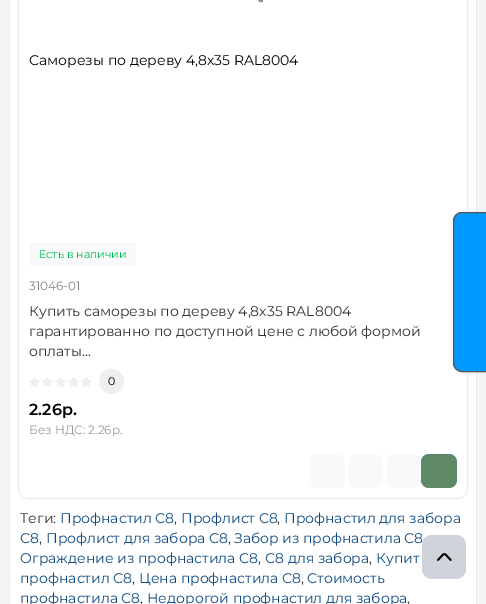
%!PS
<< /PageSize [486 604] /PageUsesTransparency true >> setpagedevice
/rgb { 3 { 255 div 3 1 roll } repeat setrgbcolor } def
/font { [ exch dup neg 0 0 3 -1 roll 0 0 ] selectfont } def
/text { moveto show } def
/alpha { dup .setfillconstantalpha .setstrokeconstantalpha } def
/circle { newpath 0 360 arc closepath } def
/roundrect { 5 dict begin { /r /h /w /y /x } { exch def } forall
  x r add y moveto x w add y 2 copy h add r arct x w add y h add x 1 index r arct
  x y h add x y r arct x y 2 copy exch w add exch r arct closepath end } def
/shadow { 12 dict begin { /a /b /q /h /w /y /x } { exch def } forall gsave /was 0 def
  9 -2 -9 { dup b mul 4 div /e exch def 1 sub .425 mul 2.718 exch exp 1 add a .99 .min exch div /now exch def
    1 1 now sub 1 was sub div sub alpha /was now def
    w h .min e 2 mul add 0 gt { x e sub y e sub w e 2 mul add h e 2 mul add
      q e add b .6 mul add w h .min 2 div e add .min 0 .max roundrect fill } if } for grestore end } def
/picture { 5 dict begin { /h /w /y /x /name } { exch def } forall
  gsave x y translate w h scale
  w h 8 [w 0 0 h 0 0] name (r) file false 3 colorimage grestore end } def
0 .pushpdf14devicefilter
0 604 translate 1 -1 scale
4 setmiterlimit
245 245 245 rgb
0 0 486 604 rectfill
0 0 0 rgb
10 -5 466 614 2 1 0.15 shadow
255 255 255 rgb
10 0 466 604 rectfill
233 233 233 rgb
18.5 -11.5 449 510 10.5 roundrect stroke
255 255 255 rgb
19 -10 448 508 10 roundrect fill
(img_01.rgb) 256 0 7 3 picture
248 249 250 rgb
29 242 107 24 4 roundrect fill
(img_02.rgb) 29 377 11 10 picture
(img_02.rgb) 42 377 11 10 picture
(img_02.rgb) 55 377 11 10 picture
(img_02.rgb) 68 377 11 10 picture
(img_02.rgb) 81 377 11 10 picture
239 239 239 rgb
111.5 381.5 12.5 circle fill
248 249 250 rgb
310 454 35 34 8 roundrect fill
349 454 34 34 8 roundrect fill
387 454 34 34 8 roundrect fill
94 136 102 rgb
421 454 36 34 8 roundrect fill
221 221 221 rgb
453 212 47 160 9 1.5 1 shadow
0 153 255 rgb
453.5 212.5 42 159 8.5 roundrect gsave fill grestore
85 85 85 rgb
stroke
/Montserrat-Regular 14 font
0 0 0 rgb
(Саморезы по дереву 4,8х35 RAL8004) 29 65 text
/Montserrat-Regular 11 font
0 188 82 rgb
(Есть в наличии) 39 258 text
/Montserrat-Regular 12 font
128 128 128 rgb
(31046-01) 29 290 text
/Montserrat-Regular 14 font
51 51 51 rgb
(Купить саморезы по дереву 4,8х35 RAL8004) 29 316 text
(гарантированно по доступной цене с любой формой) 29 336 text
(оплаты...) 29 356 text
/Montserrat-Regular 11 font
0 0 0 rgb
(0) 108 385 text
/Montserrat-SemiBold 16 font
(2.26р.) 29 415 text
/Montserrat-Regular 12 font
153 153 153 rgb
(Без НДС: 2.26р.) 29 434 text
/Montserrat-Regular 14 font
51 51 51 rgb
(Теги:) 20 523 text
15 75 130 rgb
(Профнастил С8) 60 523 text
51 51 51 rgb
(,) 174 523 text
15 75 130 rgb
(Профлист С8) 181 523 text
51 51 51 rgb
(,) 277 523 text
15 75 130 rgb
(Профнастил для забора) 284 523 text
(С8) 20 543 text
51 51 51 rgb
(,) 39 543 text
15 75 130 rgb
(Профлист для забора С8) 46 543 text
51 51 51 rgb
(,) 228 543 text
15 75 130 rgb
(Забор из профнастила С8) 234 543 text
(Ограждение из профнастила С8) 20 563 text
51 51 51 rgb
(,) 258 563 text
15 75 130 rgb
(С8 для забора) 265 563 text
51 51 51 rgb
(,) 369 563 text
15 75 130 rgb
(Купит) 376 563 text
(профнастил С8) 20 583 text
51 51 51 rgb
(,) 132 583 text
15 75 130 rgb
(Цена профнастила С8) 139 583 text
51 51 51 rgb
(,) 301 583 text
15 75 130 rgb
(Стоимость) 307 583 text
(профнастила С8) 20 603 text
51 51 51 rgb
(,) 140 603 text
15 75 130 rgb
(Недорогой профнастил для забора) 147 603 text
51 51 51 rgb
(,) 407 603 text
206 212 218 rgb
422 535 44 44 10 roundrect fill
(img_03.rgb) 437 553 15 8 picture
.poppdf14devicefilter showpage
